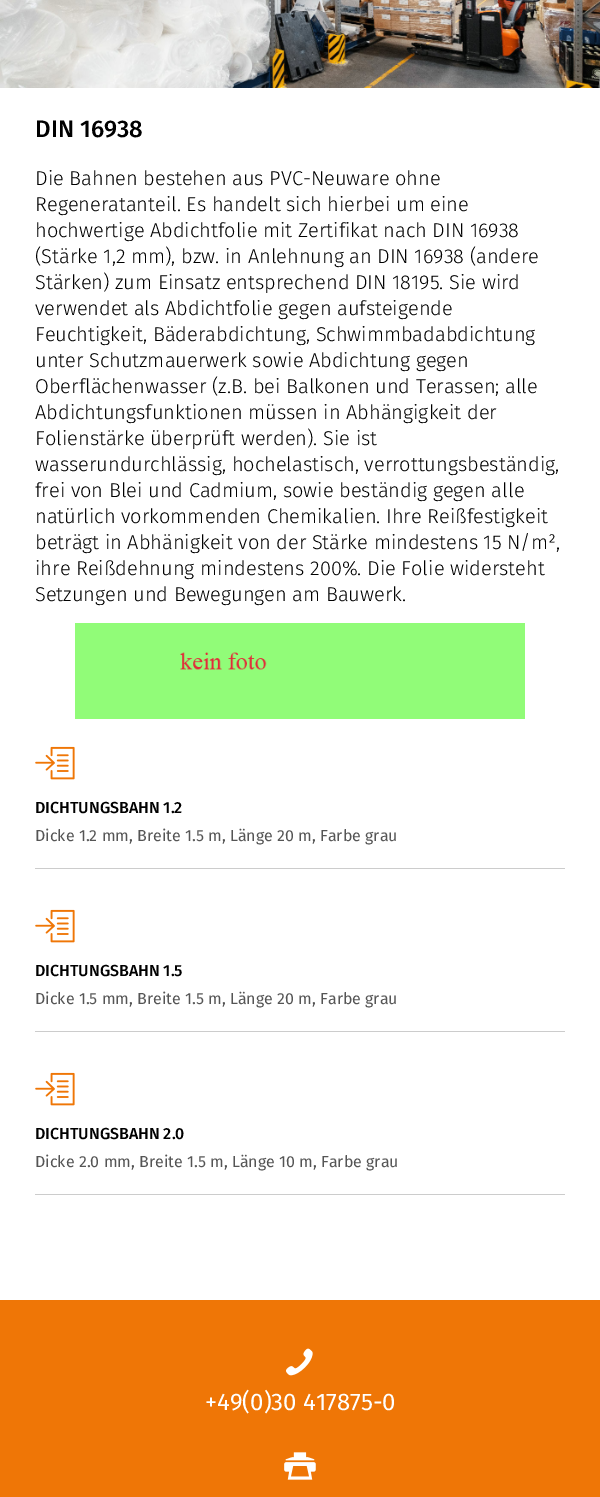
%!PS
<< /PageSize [600 1497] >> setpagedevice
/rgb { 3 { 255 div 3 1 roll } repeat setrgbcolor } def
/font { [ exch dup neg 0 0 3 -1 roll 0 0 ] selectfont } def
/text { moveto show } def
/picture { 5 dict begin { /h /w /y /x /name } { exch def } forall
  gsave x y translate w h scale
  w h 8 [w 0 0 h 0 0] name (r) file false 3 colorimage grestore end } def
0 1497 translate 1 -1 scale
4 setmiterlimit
255 255 255 rgb
0 0 600 1497 rectfill
(img_01.rgb) 0 0 600 88 picture
(img_02.rgb) 75 623 450 96 picture
204 204 204 rgb
35 868 530 1 rectfill
(img_03.rgb) 35 746 40 34 picture
35 1031 530 1 rectfill
(img_03.rgb) 35 909 40 34 picture
35 1194 530 1 rectfill
(img_03.rgb) 35 1072 40 34 picture
239 118 6 rgb
0 1300 600 197 rectfill
(img_04.rgb) 286 1348 27 28 picture
(img_05.rgb) 284 1452 32 28 picture
/FiraSans-Medium 24 font
0 0 0 rgb
(DIN 16938) 35 137 text
/FiraSans-Light 20 font
(Die Bahnen bestehen aus PVC-Neuware ohne) 35 185 text
(Regeneratanteil. Es handelt sich hierbei um eine) 35 211 text
(hochwertige Abdichtfolie mit Zertifikat nach DIN 16938) 35 237 text
(\(Stärke 1,2 mm\), bzw. in Anlehnung an DIN 16938 \(andere) 35 263 text
(Stärken\) zum Einsatz entsprechend DIN 18195. Sie wird) 35 289 text
(verwendet als Abdichtfolie gegen aufsteigende) 35 315 text
(Feuchtigkeit, Bäderabdichtung, Schwimmbadabdichtung) 35 341 text
(unter Schutzmauerwerk sowie Abdichtung gegen) 35 367 text
(Oberflächenwasser \(z.B. bei Balkonen und Terassen; alle) 35 393 text
(Abdichtungsfunktionen müssen in Abhängigkeit der) 35 419 text
(Folienstärke überprüft werden\). Sie ist) 35 445 text
(wasserundurchlässig, hochelastisch, verrottungsbeständig,) 35 471 text
(frei von Blei und Cadmium, sowie beständig gegen alle) 35 497 text
(natürlich vorkommenden Chemikalien. Ihre Reißfestigkeit) 35 523 text
(beträgt in Abhänigkeit von der Stärke mindestens 15 N/m²,) 35 549 text
(ihre Reißdehnung mindestens 200%. Die Folie widersteht) 35 575 text
(Setzungen und Bewegungen am Bauwerk.) 35 601 text
/FiraSans-Medium 16 font
(DICHTUNGSBAHN 1.2) 35 813 text
/FiraSans-Regular 16 font
85 85 85 rgb
(Dicke 1.2 mm, Breite 1.5 m, Länge 20 m, Farbe grau) 35 841 text
/FiraSans-Medium 16 font
0 0 0 rgb
(DICHTUNGSBAHN 1.5) 35 976 text
/FiraSans-Regular 16 font
85 85 85 rgb
(Dicke 1.5 mm, Breite 1.5 m, Länge 20 m, Farbe grau) 35 1004 text
/FiraSans-Medium 16 font
0 0 0 rgb
(DICHTUNGSBAHN 2.0) 35 1139 text
/FiraSans-Regular 16 font
85 85 85 rgb
(Dicke 2.0 mm, Breite 1.5 m, Länge 10 m, Farbe grau) 35 1167 text
/FiraSans-Regular 24 font
255 255 255 rgb
(+49\(0\)30 417875-0) 205 1410 text
showpage
